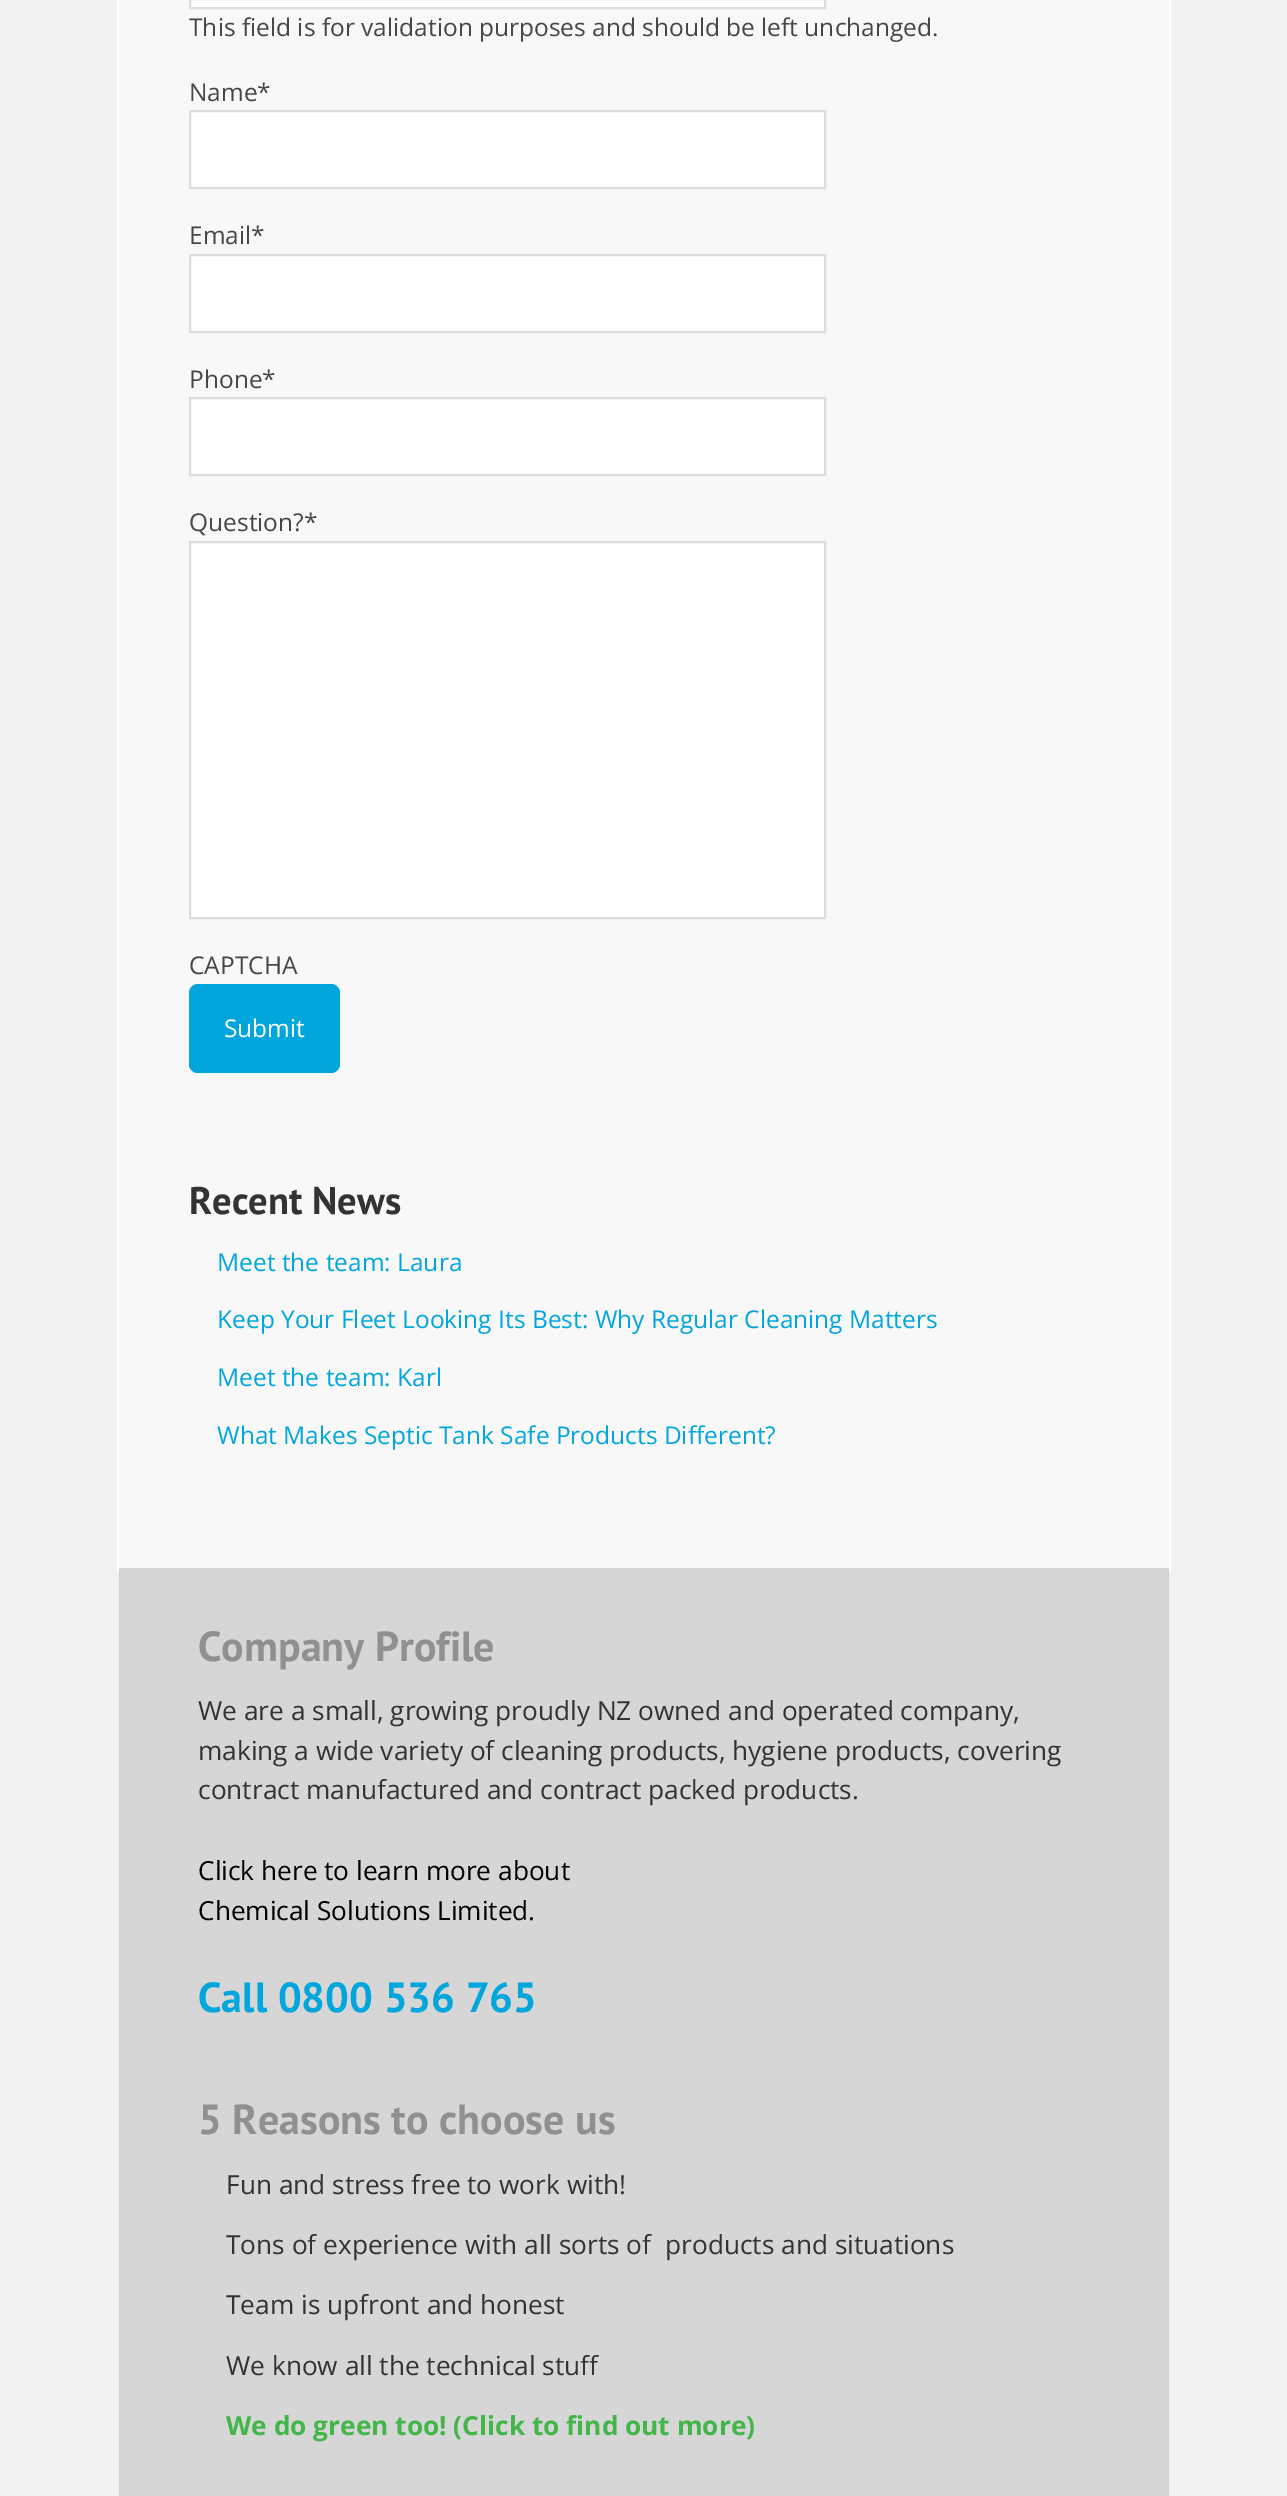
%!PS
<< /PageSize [1287 2496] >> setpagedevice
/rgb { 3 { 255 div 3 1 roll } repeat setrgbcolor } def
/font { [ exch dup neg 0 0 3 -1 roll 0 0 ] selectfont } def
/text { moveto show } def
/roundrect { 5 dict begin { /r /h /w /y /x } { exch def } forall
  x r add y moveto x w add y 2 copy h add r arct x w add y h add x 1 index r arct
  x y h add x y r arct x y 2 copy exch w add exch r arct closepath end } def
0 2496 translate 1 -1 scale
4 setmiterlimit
242 242 242 rgb
0 0 1287 2496 rectfill
255 255 255 rgb
2 setlinewidth
118 -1 1052 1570 rectstroke
248 248 248 rgb
119 0 1050 1568 rectfill
255 255 255 rgb
190 -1 moveto 635 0 rlineto 0 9 rlineto -635 0 rlineto closepath gsave fill grestore
221 221 221 rgb
stroke
255 255 255 rgb
190 111 moveto 635 0 rlineto 0 77 rlineto -635 0 rlineto closepath gsave fill grestore
221 221 221 rgb
stroke
255 255 255 rgb
190 255 moveto 635 0 rlineto 0 77 rlineto -635 0 rlineto closepath gsave fill grestore
221 221 221 rgb
stroke
255 255 255 rgb
190 398 moveto 635 0 rlineto 0 77 rlineto -635 0 rlineto closepath gsave fill grestore
221 221 221 rgb
stroke
255 255 255 rgb
190 542 moveto 635 0 rlineto 0 376 rlineto -635 0 rlineto closepath gsave fill grestore
221 221 221 rgb
stroke
1 166 220 rgb
189 984 151 89 9 roundrect fill
214 214 214 rgb
119 1568 1050 928 rectfill
/OpenSans-Regular 24.5 font
71 71 71 rgb
(This field is for validation purposes and should be left unchanged.) 189 36 text
(Name*) 189 101 text
(Email*) 189 244 text
(Phone*) 189 388 text
(Question?*) 189 531 text
(CAPTCHA) 189 974 text
255 255 255 rgb
(Submit) 224 1037 text
/PTSans-Bold 38.5 font
51 51 51 rgb
(Recent News) 189 1214 text
/OpenSans-Regular 24.5 font
1 166 220 rgb
(Meet the team: Laura) 217 1271 text
(Keep Your Fleet Looking Its Best: Why Regular Cleaning Matters) 217 1328 text
(Meet the team: Karl) 217 1386 text
(What Makes Septic Tank Safe Products Different?) 217 1444 text
/PTSans-Bold 42 font
144 144 144 rgb
(Company Profile) 198 1661 text
/OpenSans-Regular 26.25 font
51 51 51 rgb
(We are a small, growing proudly NZ owned and operated company,) 198 1720 text
(making a wide variety of cleaning products, hygiene products, covering) 198 1760 text
(contract manufactured and contract packed products.) 198 1799 text
0 0 0 rgb
(Click here to learn more about) 198 1880 text
(Chemical Solutions Limited.) 198 1920 text
/PTSans-Bold 42 font
1 166 220 rgb
(Call 0800 536 765) 198 2012 text
144 144 144 rgb
(5 Reasons to choose us) 198 2134 text
/OpenSans-Regular 26.25 font
51 51 51 rgb
(Fun and stress free to work with!) 226 2194 text
(Tons of experience with all sorts of) 226 2254 text
(products and situations) 665 2254 text
(Team is upfront and honest) 226 2314 text
(We know all the technical stuff) 226 2375 text
/OpenSans-Bold 26.25 font
67 182 73 rgb
(We do green too! \(Click to find out more\)) 226 2435 text
showpage
